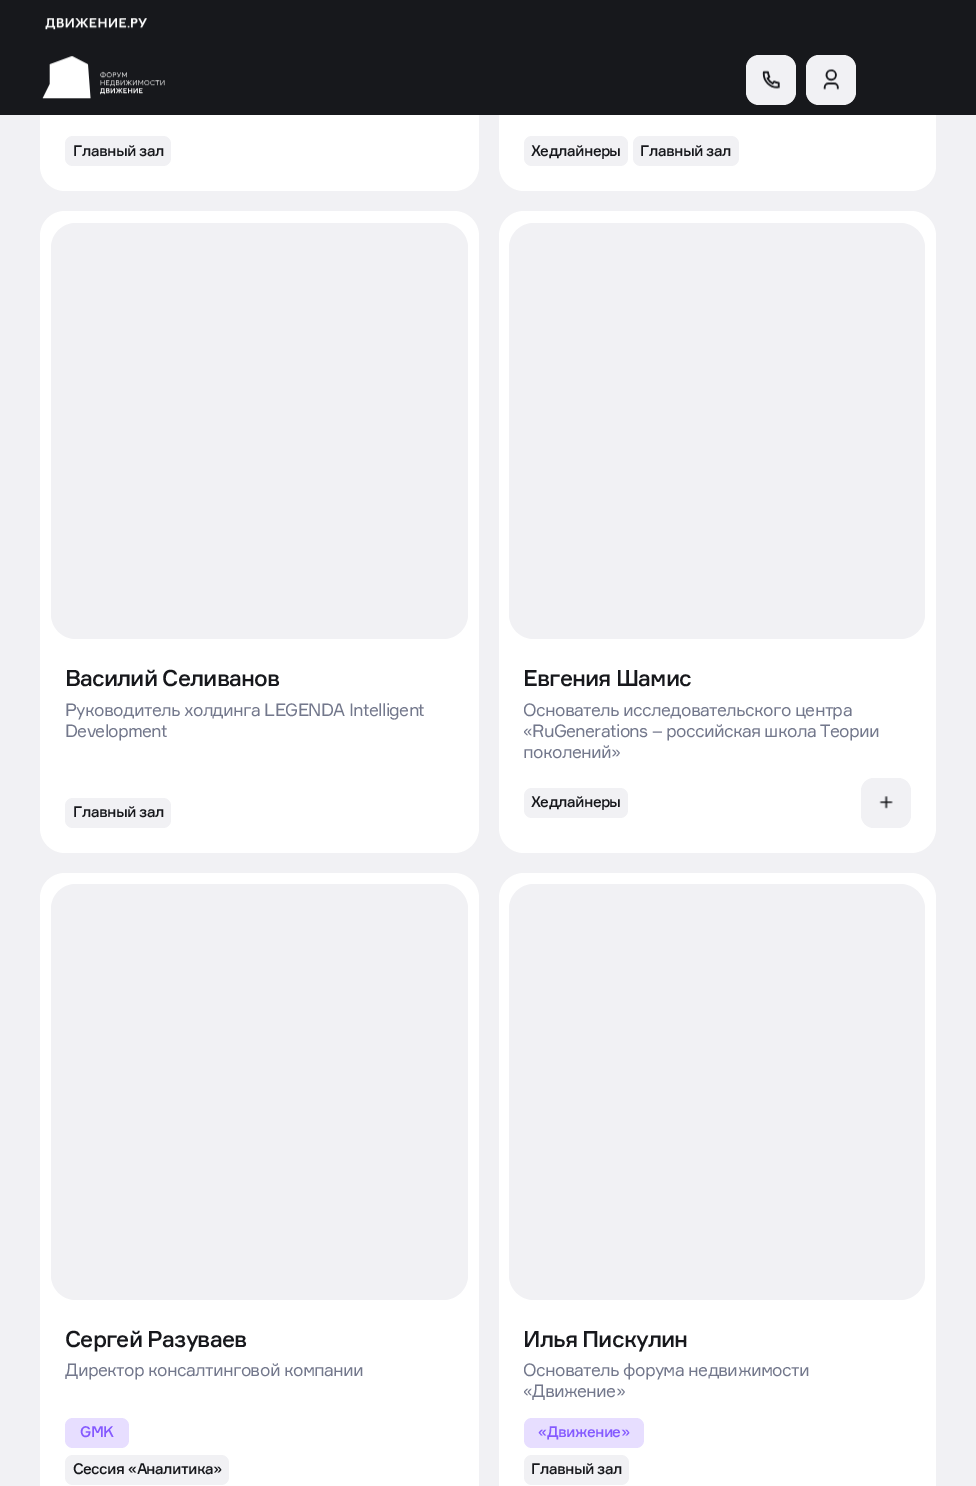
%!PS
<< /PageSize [976 1486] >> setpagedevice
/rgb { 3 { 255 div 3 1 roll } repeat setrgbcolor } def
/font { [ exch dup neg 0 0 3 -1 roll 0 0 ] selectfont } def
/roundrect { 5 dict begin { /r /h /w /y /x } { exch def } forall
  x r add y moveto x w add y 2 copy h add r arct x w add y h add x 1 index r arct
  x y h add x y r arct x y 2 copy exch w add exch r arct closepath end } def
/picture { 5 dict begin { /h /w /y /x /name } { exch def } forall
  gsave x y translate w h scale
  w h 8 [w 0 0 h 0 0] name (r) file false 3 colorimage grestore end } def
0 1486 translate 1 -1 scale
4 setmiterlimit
241 241 244 rgb
0 0 976 1486 rectfill
255 255 255 rgb
40 -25 439 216 25 roundrect fill
499 -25 437 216 25 roundrect fill
23 24 28 rgb
0 0 976 115 rectfill
(img_01.rgb) 45 18 102 12 picture
(img_02.rgb) 42 56 123 43 picture
241 241 244 rgb
746 55 50 50 13 roundrect fill
(img_03.rgb) 762 70 18 19 picture
806 55 50 50 13 roundrect fill
(img_04.rgb) 823 69 16 21 picture
65 136 106 30 8 roundrect fill
524 136 104 30 8 roundrect fill
633 136 106 30 8 roundrect fill
255 255 255 rgb
40 211 439 642 25 roundrect fill
241 241 244 rgb
51 223 417 416 25 roundrect fill
65 798 106 30 8 roundrect fill
255 255 255 rgb
499 211 437 642 25 roundrect fill
241 241 244 rgb
509 223 416 416 25 roundrect fill
524 788 104 30 8 roundrect fill
861 778 50 50 13 roundrect fill
(img_05.rgb) 879 796 14 13 picture
255 255 255 rgb
40 873 439 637 25 roundrect fill
241 241 244 rgb
51 884 417 416 25 roundrect fill
231 222 255 rgb
65 1418 64 30 8 roundrect fill
241 241 244 rgb
65 1455 164 30 8 roundrect fill
255 255 255 rgb
499 873 437 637 25 roundrect fill
241 241 244 rgb
509 884 416 416 25 roundrect fill
231 222 255 rgb
524 1418 120 30 8 roundrect fill
241 241 244 rgb
524 1455 105 30 8 roundrect fill
/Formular-Medium 15 font
23 24 28 rgb
73 156 moveto -0.6 0 (Главный зал) ashow
531 156 moveto -0.6 0 (Хедлайнеры) ashow
640 156 moveto -0.6 0 (Главный зал) ashow
/Formular-Medium 22.5 font
65 686 moveto -0.9 0 (Василий Селиванов) ashow
/Formular-Regular 17.5 font
115 120 140 rgb
65 716 moveto -0.7 0 (Руководитель холдинга LEGENDA Intelligent) ashow
65 737 moveto -0.7 0 (Development) ashow
/Formular-Medium 15 font
23 24 28 rgb
73 817 moveto -0.6 0 (Главный зал) ashow
/Formular-Medium 22.5 font
523 686 moveto -0.9 0 (Евгения Шамис) ashow
/Formular-Regular 17.5 font
115 120 140 rgb
523 716 moveto -0.7 0 (Основатель исследовательского центра) ashow
523 737 moveto -0.7 0 («RuGenerations – российская школа Теории) ashow
523 758 moveto -0.7 0 (поколений») ashow
/Formular-Medium 15 font
23 24 28 rgb
531 807 moveto -0.6 0 (Хедлайнеры) ashow
/Formular-Medium 22.5 font
65 1347 moveto -0.9 0 (Сергей Разуваев) ashow
/Formular-Regular 17.5 font
115 120 140 rgb
65 1376 moveto -0.7 0 (Директор консалтинговой компании) ashow
/Formular-Medium 15 font
133 90 255 rgb
80 1437 moveto -0.6 0 (GMK) ashow
23 24 28 rgb
73 1474 moveto -0.6 0 (Сессия «Аналитика») ashow
/Formular-Medium 22.5 font
523 1347 moveto -0.9 0 (Илья Пискулин) ashow
/Formular-Regular 17.5 font
115 120 140 rgb
523 1376 moveto -0.7 0 (Основатель форума недвижимости) ashow
523 1397 moveto -0.7 0 («Движение») ashow
/Formular-Medium 15 font
133 90 255 rgb
538 1437 moveto -0.6 0 («Движение») ashow
23 24 28 rgb
531 1474 moveto -0.6 0 (Главный зал) ashow
showpage
